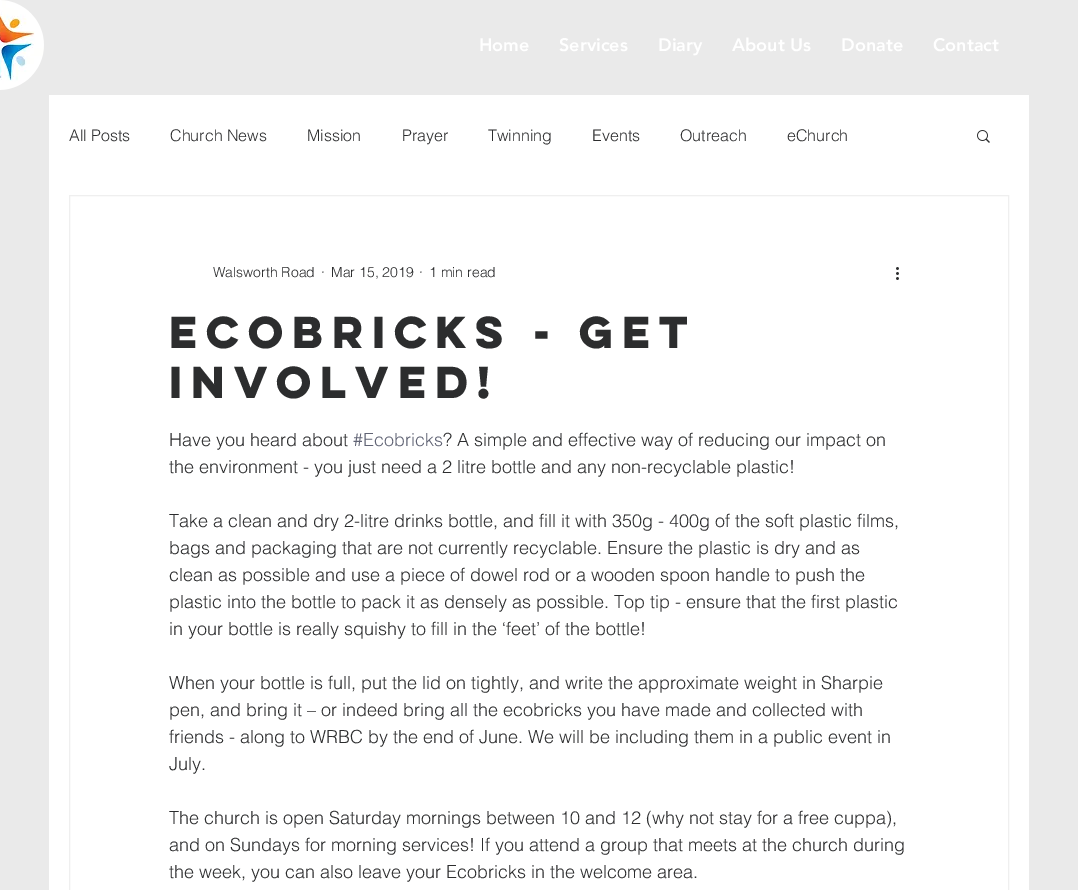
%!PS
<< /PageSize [1078 890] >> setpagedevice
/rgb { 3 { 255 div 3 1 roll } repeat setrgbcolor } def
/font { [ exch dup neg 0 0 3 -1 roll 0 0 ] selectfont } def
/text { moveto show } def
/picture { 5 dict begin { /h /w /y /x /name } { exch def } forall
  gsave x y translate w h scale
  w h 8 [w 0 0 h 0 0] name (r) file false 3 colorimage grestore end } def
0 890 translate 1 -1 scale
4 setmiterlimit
234 234 234 rgb
0 0 1078 890 rectfill
(img_01.rgb) 0 0 44 90 picture
255 255 255 rgb
49 95 980 795 rectfill
(img_02.rgb) 977 130 13 13 picture
239 239 239 rgb
69.5 195.5 939 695 rectstroke
(img_03.rgb) 896 267 3 13 picture
/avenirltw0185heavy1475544-Black 18 font
255 255 255 rgb
(Home) 479 51 text
(Services) 559 51 text
(Diary) 658 51 text
(About Us) 732 51 text
(Donate) 841 51 text
(Contact) 933 51 text
/helvetica-Light 16 font
44 45 46 rgb
(All Posts) 69 141 text
(Church News) 170 141 text
(Mission) 307 141 text
(Prayer) 402 141 text
(Twinning) 488 141 text
(Events) 592 141 text
(Outreach) 680 141 text
(eChurch) 787 141 text
/helvetica-Light 14 font
(Walsworth Road) 213 277 text
(·) 321 277 text
(Mar 15, 2019) 331 277 text
(·) 419 277 text
(1 min read) 429 277 text
/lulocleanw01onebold-Bold 40 font
(ECOBRICKS - GET) 169 348 text
(INVOLVED!) 169 398 text
/helvetica-Light 18 font
(Have you heard about) 169 446 text
97 100 117 rgb
(#Ecobricks) 353 446 text
44 45 46 rgb
(? A simple and effective way of reducing our impact on) 443 446 text
(the environment - you just need a 2 litre bottle and any non-recyclable plastic!) 169 473 text
(Take a clean and dry 2-litre drinks bottle, and fill it with 350g - 400g of the soft plastic films,) 169 527 text
(bags and packaging that are not currently recyclable. Ensure the plastic is dry and as) 169 554 text
(clean as possible and use a piece of dowel rod or a wooden spoon handle to push the) 169 581 text
(plastic into the bottle to pack it as densely as possible. Top tip - ensure that the first plastic) 169 608 text
(in your bottle is really squishy to fill in the ‘feet’ of the bottle!) 169 635 text
(When your bottle is full, put the lid on tightly, and write the approximate weight in Sharpie) 169 689 text
(pen, and bring it – or indeed bring all the ecobricks you have made and collected with) 169 716 text
(friends - along to WRBC by the end of June. We will be including them in a public event in) 169 743 text
(July.) 169 770 text
(The church is open Saturday mornings between 10 and 12 \(why not stay for a free cuppa\),) 169 824 text
(and on Sundays for morning services! If you attend a group that meets at the church during) 169 851 text
(the week, you can also leave your Ecobricks in the welcome area.) 169 878 text
showpage
